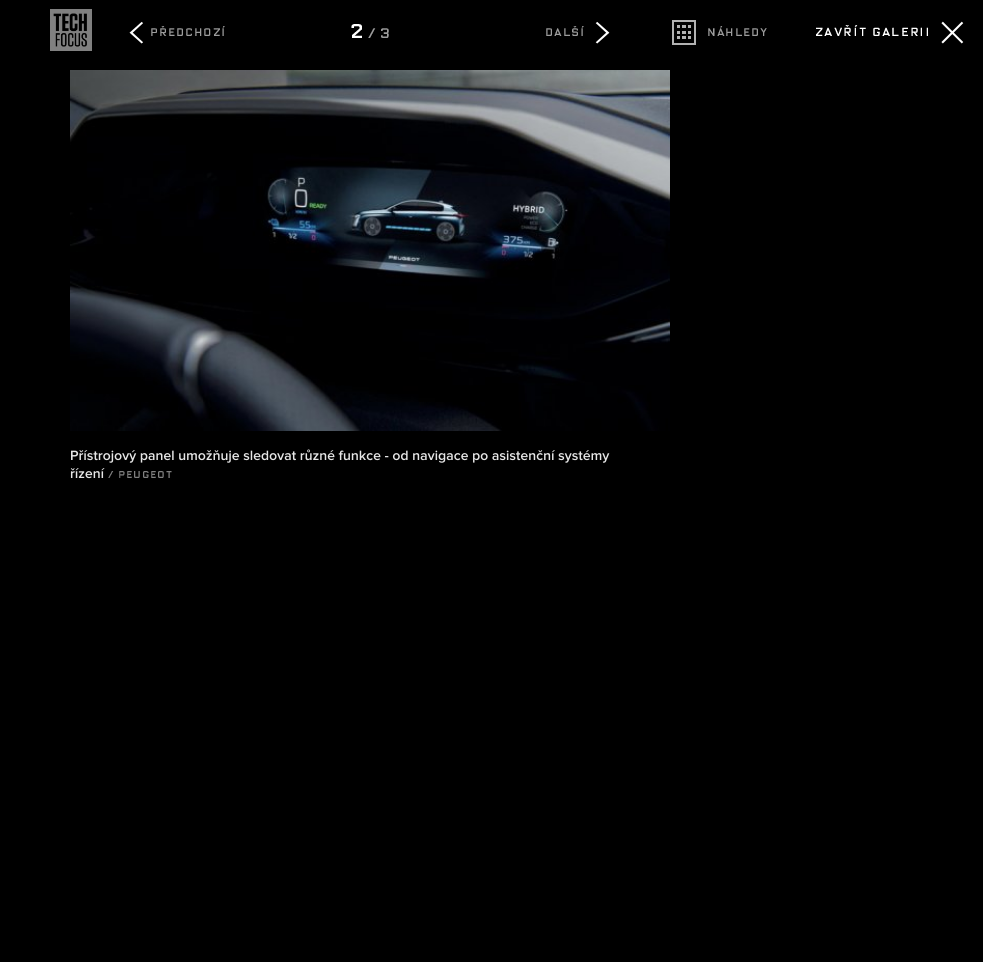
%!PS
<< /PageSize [983 962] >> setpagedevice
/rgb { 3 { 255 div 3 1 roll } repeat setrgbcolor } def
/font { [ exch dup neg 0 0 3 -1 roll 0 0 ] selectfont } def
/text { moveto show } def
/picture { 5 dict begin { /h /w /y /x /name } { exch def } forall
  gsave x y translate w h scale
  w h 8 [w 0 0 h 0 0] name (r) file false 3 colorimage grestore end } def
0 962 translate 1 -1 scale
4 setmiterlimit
0 0 0 rgb
0 0 983 962 rectfill
(img_01.rgb) 50 9 42 42 picture
(img_02.rgb) 129 21 14 23 picture
(img_03.rgb) 595 21 15 23 picture
(img_04.rgb) 70 70 600 361 picture
(img_05.rgb) 71 449 539 14 picture
(img_06.rgb) 70 468 35 11 picture
(img_07.rgb) 672 20 24 25 picture
(img_08.rgb) 941 21 23 23 picture
/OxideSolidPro-Regular 11 font
156 156 156 rgb
150 36 moveto 0.9 0 (Předchozí) ashow
/OxideSolidPro-Regular 20 font
255 255 255 rgb
(2) 350 38 text
/OxideSolidPro-Regular 14 font
156 156 156 rgb
(/ 3) 368 38 text
/OxideSolidPro-Regular 11 font
545 36 moveto 0.9 0 (Další) ashow
/OxideSolidPro-Regular 10 font
128 128 128 rgb
108 478 moveto 0.75 0 (/ Peugeot) ashow
/OxideSolidPro-Regular 11 font
156 156 156 rgb
707 36 moveto 0.9 0 (Náhledy) ashow
/OxideSolidPro-Regular 12 font
255 255 255 rgb
815 36 moveto 1 0 (Zavřít galerii) ashow
showpage
